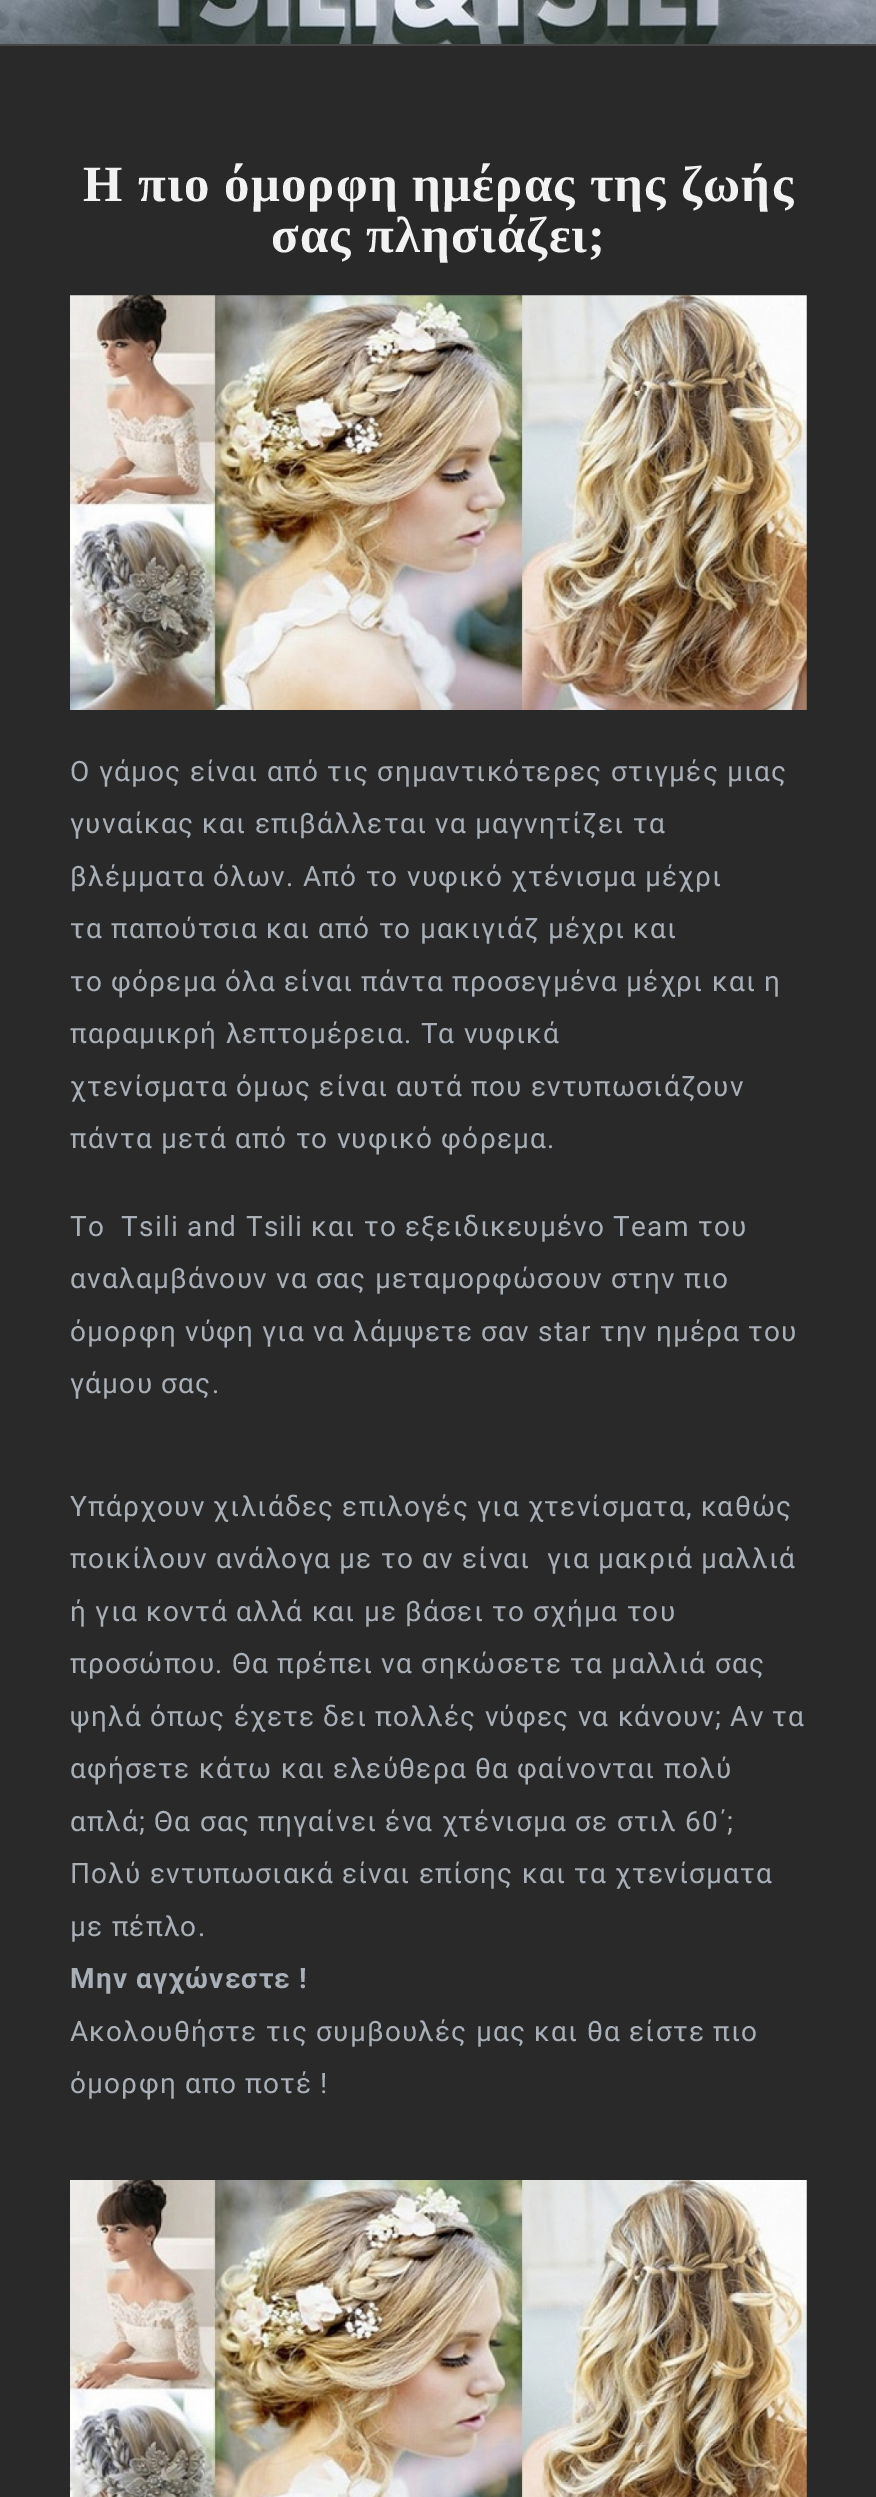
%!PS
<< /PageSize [876 2497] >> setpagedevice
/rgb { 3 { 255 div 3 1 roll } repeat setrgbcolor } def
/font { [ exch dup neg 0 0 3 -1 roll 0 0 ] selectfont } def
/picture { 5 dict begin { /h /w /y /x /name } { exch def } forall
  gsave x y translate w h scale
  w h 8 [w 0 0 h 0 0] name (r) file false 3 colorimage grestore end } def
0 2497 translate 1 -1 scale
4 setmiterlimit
41 41 42 rgb
0 0 876 2497 rectfill
(img_01.rgb) 0 0 876 44 picture
70 70 70 rgb
0 44 876 2 rectfill
(img_02.rgb) 70 295 737 415 picture
(img_03.rgb) 70 2180 737 317 picture
/LiberationSerif-Bold 50.75 font
242 242 242 rgb
83 201 moveto 1.22 0 (Η πιο όμορφη ημέρας της ζωής) ashow
271 252 moveto 1.22 0 (σας πλησιάζει;) ashow
/Roboto-Regular 28 font
168 175 183 rgb
70 781 moveto 1.22 0 (Ο γάμος είναι από τις σημαντικότερες στιγμές μιας) ashow
70 833 moveto 1.22 0 (γυναίκας και επιβάλλεται να μαγνητίζει τα) ashow
70 886 moveto 1.22 0 (βλέμματα όλων. Από το νυφικό χτένισμα μέχρι) ashow
70 938 moveto 1.22 0 (τα παπούτσια και από το μακιγιάζ μέχρι και) ashow
70 991 moveto 1.22 0 (το φόρεμα όλα είναι πάντα προσεγμένα μέχρι και η) ashow
70 1043 moveto 1.22 0 (παραμικρή λεπτομέρεια. Τα νυφικά) ashow
70 1096 moveto 1.22 0 (χτενίσματα όμως είναι αυτά που εντυπωσιάζουν) ashow
70 1148 moveto 1.22 0 (πάντα μετά από το νυφικό φόρεμα.) ashow
70 1236 moveto 1.22 0 (Το  Tsili and Tsili και το εξειδικευμένο Team του) ashow
70 1288 moveto 1.22 0 (αναλαμβάνουν να σας μεταμορφώσουν στην πιο) ashow
70 1341 moveto 1.22 0 (όμορφη νύφη για να λάμψετε σαν star την ημέρα του) ashow
70 1393 moveto 1.22 0 (γάμου σας.) ashow
70 1516 moveto 1.22 0 (Υπάρχουν χιλιάδες επιλογές για χτενίσματα, καθώς) ashow
70 1568 moveto 1.22 0 (ποικίλουν ανάλογα με το αν είναι  για μακριά μαλλιά) ashow
70 1621 moveto 1.22 0 (ή για κοντά αλλά και με βάσει το σχήμα του) ashow
70 1673 moveto 1.22 0 (προσώπου. Θα πρέπει να σηκώσετε τα μαλλιά σας) ashow
70 1726 moveto 1.22 0 (ψηλά όπως έχετε δει πολλές νύφες να κάνουν; Αν τα) ashow
70 1778 moveto 1.22 0 (αφήσετε κάτω και ελεύθερα θα φαίνονται πολύ) ashow
70 1831 moveto 1.22 0 (απλά; Θα σας πηγαίνει ένα χτένισμα σε στιλ 60΄;) ashow
70 1883 moveto 1.22 0 (Πολύ εντυπωσιακά είναι επίσης και τα χτενίσματα) ashow
70 1936 moveto 1.22 0 (με πέπλο.) ashow
/Roboto-Bold 28 font
70 1988 moveto 1.22 0 (Μην αγχώνεστε !) ashow
/Roboto-Regular 28 font
70 2041 moveto 1.22 0 (Ακολουθήστε τις συμβουλές μας και θα είστε πιο) ashow
70 2093 moveto 1.22 0 (όμορφη απο ποτέ !) ashow
showpage
